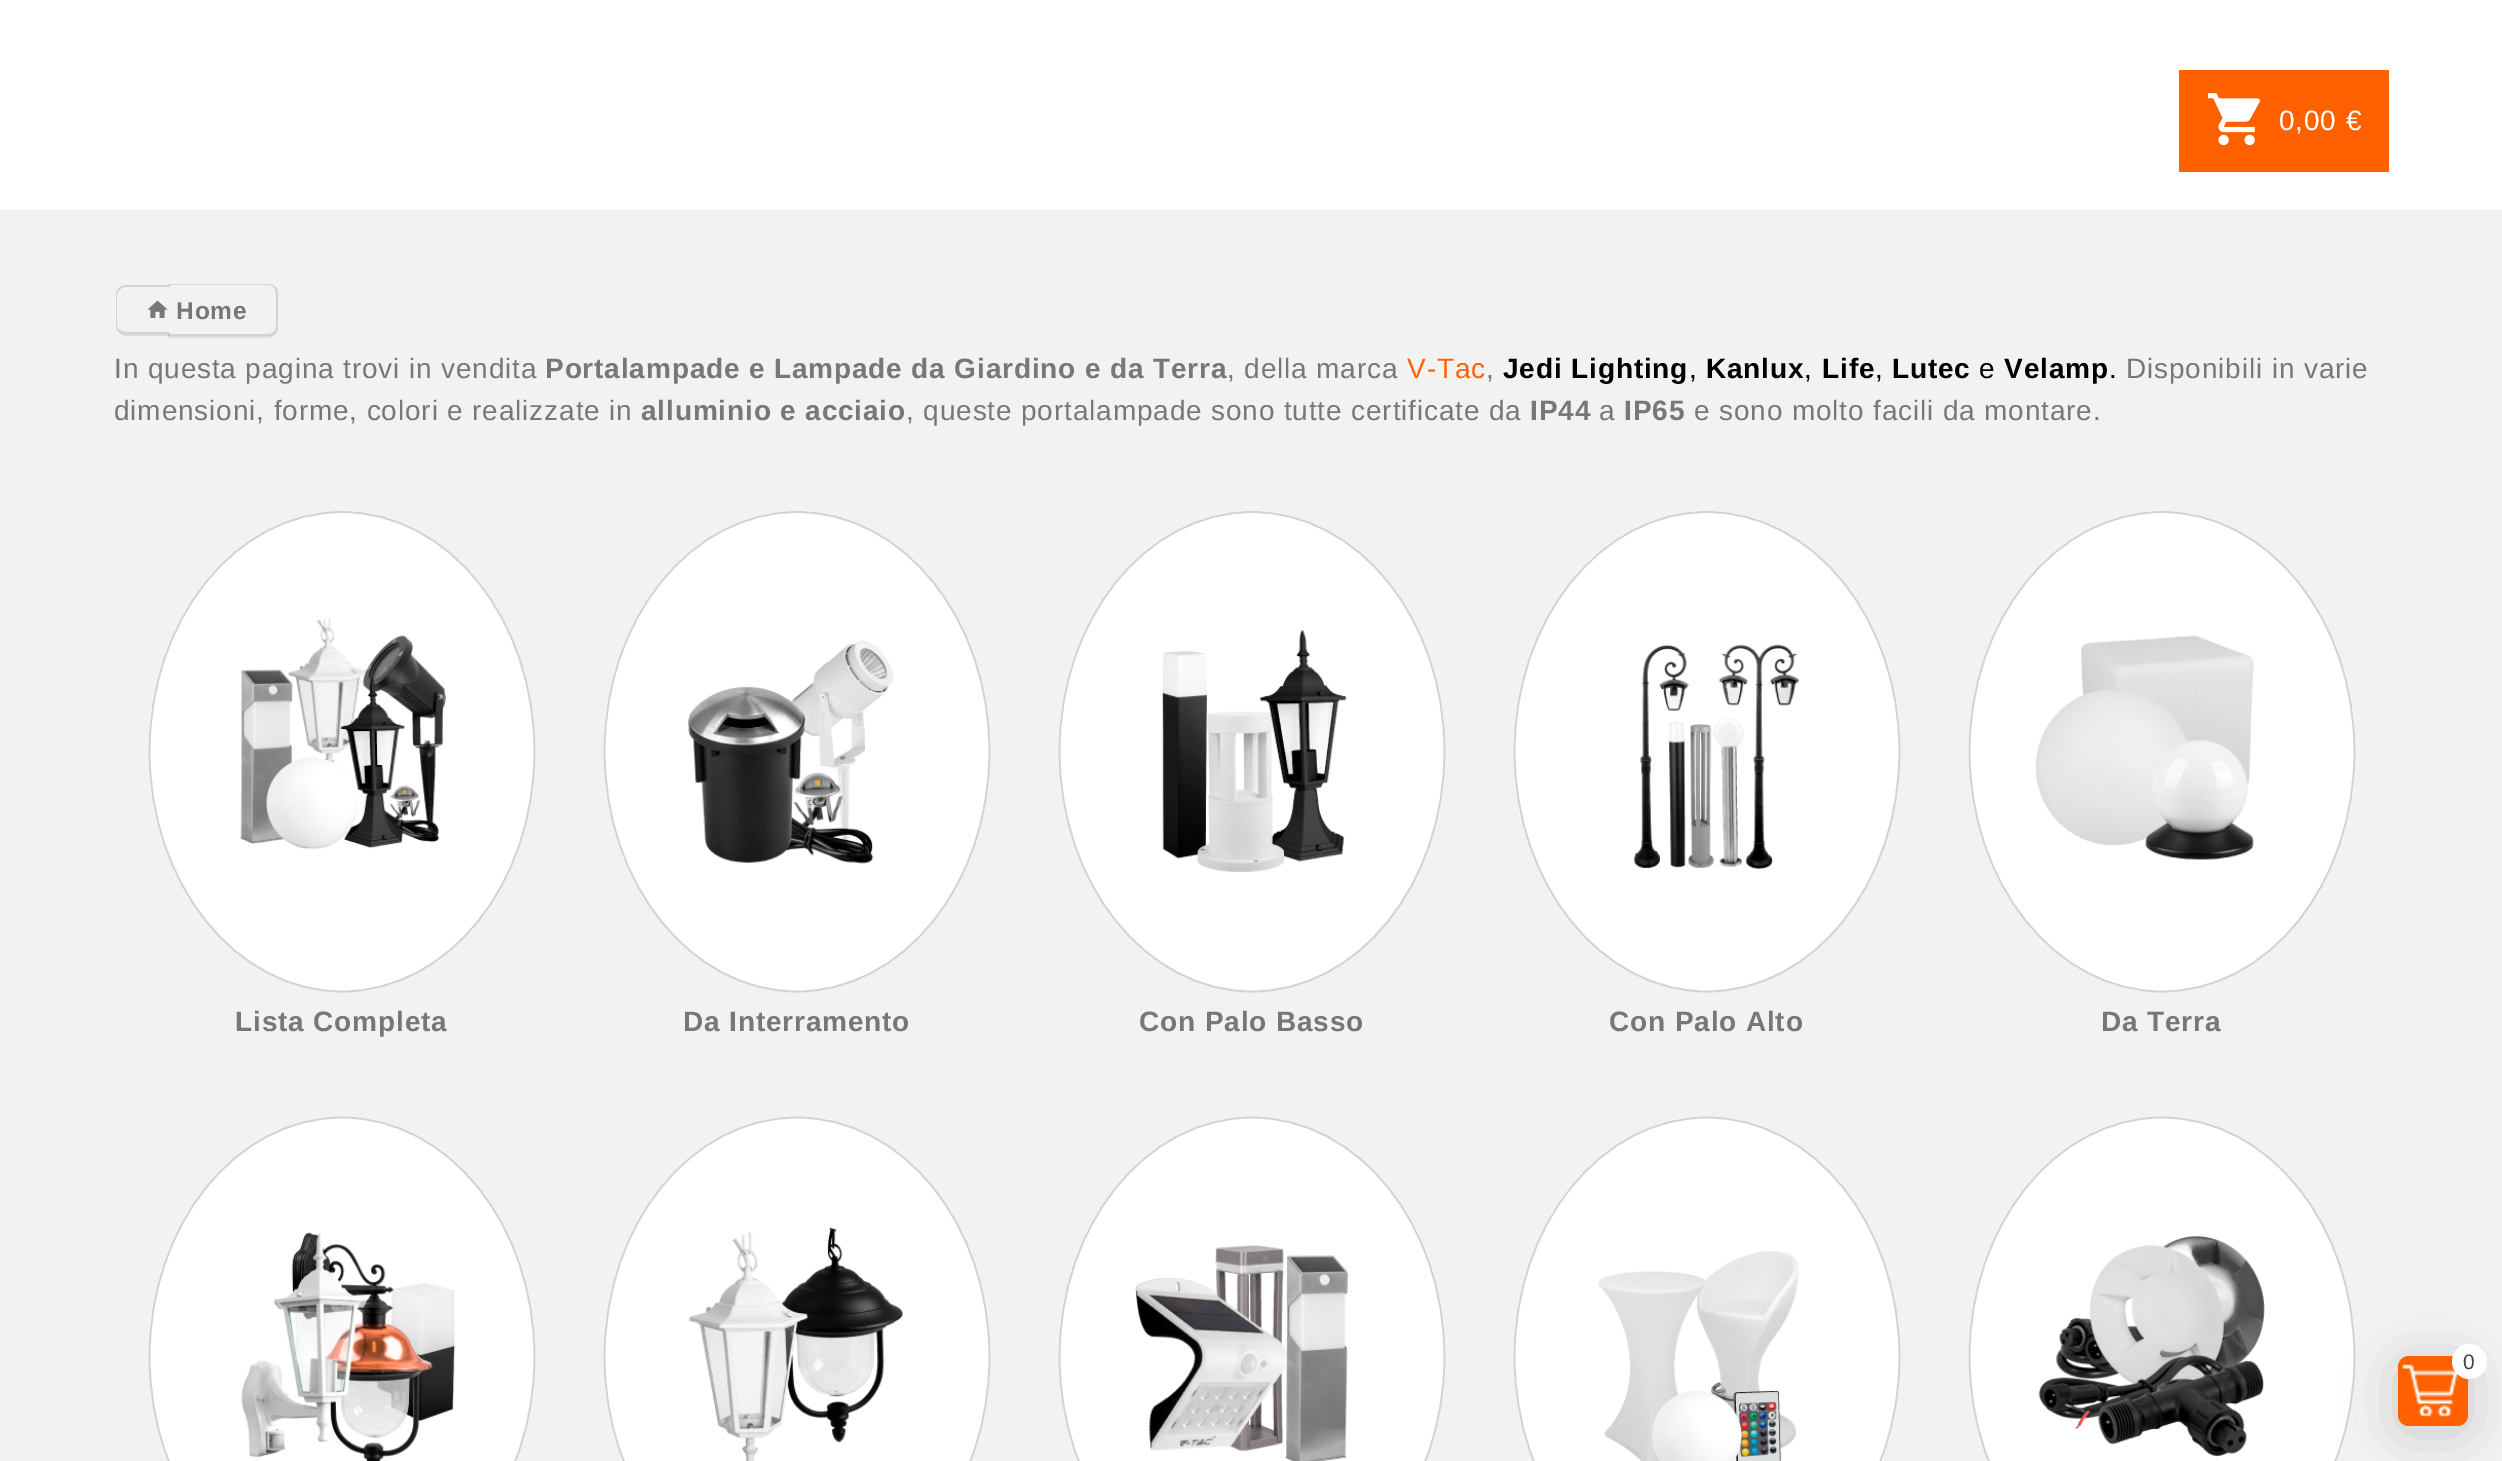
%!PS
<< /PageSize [2502 1461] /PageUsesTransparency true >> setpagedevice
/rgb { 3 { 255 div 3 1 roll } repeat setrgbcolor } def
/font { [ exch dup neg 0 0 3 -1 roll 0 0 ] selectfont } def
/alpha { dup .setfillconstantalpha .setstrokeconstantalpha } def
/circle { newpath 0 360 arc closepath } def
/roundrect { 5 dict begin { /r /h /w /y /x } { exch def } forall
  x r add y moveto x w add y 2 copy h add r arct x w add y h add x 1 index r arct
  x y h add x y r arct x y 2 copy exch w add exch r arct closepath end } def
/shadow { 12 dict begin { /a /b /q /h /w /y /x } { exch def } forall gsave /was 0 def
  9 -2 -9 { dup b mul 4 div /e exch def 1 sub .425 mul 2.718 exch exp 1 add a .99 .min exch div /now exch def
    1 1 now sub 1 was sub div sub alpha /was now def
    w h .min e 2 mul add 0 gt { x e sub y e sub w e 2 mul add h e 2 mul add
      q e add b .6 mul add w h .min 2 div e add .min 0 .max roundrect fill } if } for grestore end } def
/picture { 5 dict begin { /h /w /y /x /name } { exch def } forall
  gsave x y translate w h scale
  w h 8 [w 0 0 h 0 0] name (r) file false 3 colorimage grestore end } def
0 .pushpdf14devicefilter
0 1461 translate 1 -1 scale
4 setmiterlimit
255 255 255 rgb
0 0 2502 1461 rectfill
255 96 0 rgb
2179 70 210 102 rectfill
(img_01.rgb) 2208 93 52 53 picture
242 242 242 rgb
0 210 2502 1251 rectfill
220 221 221 rgb
116 328 moveto 2 5 6 8 11 8 rcurveto 43 0 rlineto 0 -49 rlineto 0 47 rlineto -44 0 rlineto -4 0 -8 -2 -10 -6 rcurveto closepath fill
0.15 alpha
27 31 35 rgb
126 285 moveto 44 0 rlineto 0 49 rlineto -44 0 rlineto -6 0 -10 -4 -10 -10 rcurveto 0 -28 rlineto 0 -6 4 -11 10 -11 rcurveto closepath 126 287 moveto 44 0 rlineto 0 45 rlineto -44 0 rlineto -5 0 -9 -3 -9 -8 rcurveto 0 -28 rlineto 0 -5 4 -9 9 -9 rcurveto closepath eofill
1 alpha
(img_02.rgb) 147 300 21 18 picture
220 221 221 rgb
168 336 moveto 0 2 rlineto 99 0 rlineto 6 0 10 -4 11 -10 rcurveto -1 5 -5 8 -10 8 rcurveto closepath fill
0.15 alpha
27 31 35 rgb
168 284 moveto 100 0 rlineto 6 0 10 4 10 10 rcurveto 0 32 rlineto 0 5 -4 10 -10 10 rcurveto -100 0 rlineto closepath 168 285 moveto 100 0 rlineto 5 0 8 4 8 9 rcurveto 0 32 rlineto 0 4 -3 8 -8 8 rcurveto -100 0 rlineto closepath eofill
1 alpha
255 255 255 rgb
342 511 moveto 107 0 193.5 107.5 193.5 240.5 rcurveto 0 133 -86.5 240.5 -193.5 240.5 rcurveto -107 0 -193.5 -107.5 -193.5 -240.5 rcurveto 0 -133 86.5 -240.5 193.5 -240.5 rcurveto closepath fill
211 211 211 rgb
1.8 setlinewidth
342 512 moveto 106.5 0 192.5 107 192.5 239.5 rcurveto 0 132.5 -86 240 -192.5 240 rcurveto -106 0 -192.5 -107.5 -192.5 -240 rcurveto 0 -132.5 86.5 -239.5 192.5 -239.5 rcurveto closepath stroke
(img_03.rgb) 240 618 206 232 picture
255 255 255 rgb
797 511 moveto 107 0 193.5 107.5 193.5 240.5 rcurveto 0 133 -86.5 240.5 -193.5 240.5 rcurveto -107 0 -193.5 -107.5 -193.5 -240.5 rcurveto 0 -133 86.5 -240.5 193.5 -240.5 rcurveto closepath fill
211 211 211 rgb
797 512 moveto 106.5 0 192.5 107 192.5 239.5 rcurveto 0 132.5 -86 240 -192.5 240 rcurveto -106 0 -192.5 -107.5 -192.5 -240 rcurveto 0 -132.5 86.5 -239.5 192.5 -239.5 rcurveto closepath stroke
(img_04.rgb) 688 640 206 224 picture
255 255 255 rgb
1252 511 moveto 107 0 193.5 107.5 193.5 240.5 rcurveto 0 133 -86.5 240.5 -193.5 240.5 rcurveto -107 0 -193.5 -107.5 -193.5 -240.5 rcurveto 0 -133 86.5 -240.5 193.5 -240.5 rcurveto closepath fill
211 211 211 rgb
1252 512 moveto 106.5 0 192.5 107 192.5 239.5 rcurveto 0 132.5 -86 240 -192.5 240 rcurveto -106 0 -192.5 -107.5 -192.5 -240 rcurveto 0 -132.5 86.5 -239.5 192.5 -239.5 rcurveto closepath stroke
(img_05.rgb) 1162 630 185 242 picture
255 255 255 rgb
1707 511 moveto 107 0 193.5 107.5 193.5 240.5 rcurveto 0 133 -86.5 240.5 -193.5 240.5 rcurveto -107 0 -193.5 -107.5 -193.5 -240.5 rcurveto 0 -133 86.5 -240.5 193.5 -240.5 rcurveto closepath fill
211 211 211 rgb
1707 512 moveto 106.5 0 192.5 107 192.5 239.5 rcurveto 0 132.5 -86 240 -192.5 240 rcurveto -106 0 -192.5 -107.5 -192.5 -240 rcurveto 0 -132.5 86.5 -239.5 192.5 -239.5 rcurveto closepath stroke
(img_06.rgb) 1634 644 166 225 picture
255 255 255 rgb
2162 511 moveto 107 0 193.5 107.5 193.5 240.5 rcurveto 0 133 -86.5 240.5 -193.5 240.5 rcurveto -107 0 -193.5 -107.5 -193.5 -240.5 rcurveto 0 -133 86.5 -240.5 193.5 -240.5 rcurveto closepath fill
211 211 211 rgb
2162 512 moveto 106.5 0 192.5 107 192.5 239.5 rcurveto 0 132.5 -86 240 -192.5 240 rcurveto -106 0 -192.5 -107.5 -192.5 -240 rcurveto 0 -132.5 86.5 -239.5 192.5 -239.5 rcurveto closepath stroke
(img_07.rgb) 2035 635 219 225 picture
255 255 255 rgb
342 1116.5 moveto 107 0 193.5 107.5 193.5 240.5 rcurveto 0 133 -86.5 240.5 -193.5 240.5 rcurveto -107 0 -193.5 -107.5 -193.5 -240.5 rcurveto 0 -133 86.5 -240.5 193.5 -240.5 rcurveto closepath fill
211 211 211 rgb
342 1117.5 moveto 106.5 0 192.5 107 192.5 239.5 rcurveto 0 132.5 -86 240 -192.5 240 rcurveto -106 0 -192.5 -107.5 -192.5 -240 rcurveto 0 -132.5 86.5 -239.5 192.5 -239.5 rcurveto closepath stroke
(img_08.rgb) 241 1232 215 229 picture
255 255 255 rgb
797 1116.5 moveto 107 0 193.5 107.5 193.5 240.5 rcurveto 0 133 -86.5 240.5 -193.5 240.5 rcurveto -107 0 -193.5 -107.5 -193.5 -240.5 rcurveto 0 -133 86.5 -240.5 193.5 -240.5 rcurveto closepath fill
211 211 211 rgb
797 1117.5 moveto 106.5 0 192.5 107 192.5 239.5 rcurveto 0 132.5 -86 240 -192.5 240 rcurveto -106 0 -192.5 -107.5 -192.5 -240 rcurveto 0 -132.5 86.5 -239.5 192.5 -239.5 rcurveto closepath stroke
(img_09.rgb) 689 1227 214 234 picture
255 255 255 rgb
1252 1116.5 moveto 107 0 193.5 107.5 193.5 240.5 rcurveto 0 133 -86.5 240.5 -193.5 240.5 rcurveto -107 0 -193.5 -107.5 -193.5 -240.5 rcurveto 0 -133 86.5 -240.5 193.5 -240.5 rcurveto closepath fill
211 211 211 rgb
1252 1117.5 moveto 106.5 0 192.5 107 192.5 239.5 rcurveto 0 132.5 -86 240 -192.5 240 rcurveto -106 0 -192.5 -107.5 -192.5 -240 rcurveto 0 -132.5 86.5 -239.5 192.5 -239.5 rcurveto closepath stroke
(img_10.rgb) 1135 1245 214 216 picture
255 255 255 rgb
1707 1116.5 moveto 107 0 193.5 107.5 193.5 240.5 rcurveto 0 133 -86.5 240.5 -193.5 240.5 rcurveto -107 0 -193.5 -107.5 -193.5 -240.5 rcurveto 0 -133 86.5 -240.5 193.5 -240.5 rcurveto closepath fill
211 211 211 rgb
1707 1117.5 moveto 106.5 0 192.5 107 192.5 239.5 rcurveto 0 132.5 -86 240 -192.5 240 rcurveto -106 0 -192.5 -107.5 -192.5 -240 rcurveto 0 -132.5 86.5 -239.5 192.5 -239.5 rcurveto closepath stroke
(img_11.rgb) 1598 1251 201 210 picture
255 255 255 rgb
2162 1116.5 moveto 107 0 193.5 107.5 193.5 240.5 rcurveto 0 133 -86.5 240.5 -193.5 240.5 rcurveto -107 0 -193.5 -107.5 -193.5 -240.5 rcurveto 0 -133 86.5 -240.5 193.5 -240.5 rcurveto closepath fill
211 211 211 rgb
2162 1117.5 moveto 106.5 0 192.5 107 192.5 239.5 rcurveto 0 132.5 -86 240 -192.5 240 rcurveto -106 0 -192.5 -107.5 -192.5 -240 rcurveto 0 -132.5 86.5 -239.5 192.5 -239.5 rcurveto closepath stroke
(img_12.rgb) 2038 1235 227 222 picture
0 0 0 rgb
2398 1363 70 70 11 26 0.17 shadow
255 96 0 rgb
2398 1356 70 70 11 roundrect fill
(img_13.rgb) 2402 1364 56 53 picture
255 255 255 rgb
2469.5 1361.5 17.5 circle fill
/LiberationSans-Regular 28 font
2279 130 moveto 0.85 0 (0,00 €) ashow
/LiberationSans-Bold 24.5 font
119 119 119 rgb
176 319 moveto 0.85 0 (Home) ashow
/LiberationSans-Regular 28 font
114 378 moveto 0.85 0 (In questa pagina trovi in vendita) ashow
/LiberationSans-Bold 28 font
545 378 moveto 0.85 0 (Portalampade e Lampade da Giardino e da Terra) ashow
/LiberationSans-Regular 28 font
1227 378 moveto 0.85 0 (, della marca) ashow
255 96 0 rgb
1407 378 moveto 0.85 0 (V-Tac) ashow
119 119 119 rgb
1486 378 moveto 0.85 0 (,) ashow
/LiberationSans-Bold 28 font
0 0 0 rgb
1503 378 moveto 0.85 0 (Jedi Lighting) ashow
/LiberationSans-Regular 28 font
1689 378 moveto 0.85 0 (,) ashow
/LiberationSans-Bold 28 font
1706 378 moveto 0.85 0 (Kanlux) ashow
/LiberationSans-Regular 28 font
1804 378 moveto 0.85 0 (,) ashow
/LiberationSans-Bold 28 font
1822 378 moveto 0.85 0 (Life) ashow
/LiberationSans-Regular 28 font
1875 378 moveto 0.85 0 (,) ashow
/LiberationSans-Bold 28 font
1892 378 moveto 0.85 0 (Lutec) ashow
/LiberationSans-Regular 28 font
1979 378 moveto 0.85 0 (e) ashow
/LiberationSans-Bold 28 font
2004 378 moveto 0.85 0 (Velamp) ashow
/LiberationSans-Regular 28 font
2109 378 moveto 0.85 0 (.) ashow
119 119 119 rgb
2126 378 moveto 0.85 0 (Disponibili in varie) ashow
114 420 moveto 0.85 0 (dimensioni, forme, colori e realizzate in) ashow
/LiberationSans-Bold 28 font
641 420 moveto 0.85 0 (alluminio e acciaio) ashow
/LiberationSans-Regular 28 font
906 420 moveto 0.85 0 (, queste portalampade sono tutte certificate da) ashow
/LiberationSans-Bold 28 font
1530 420 moveto 0.85 0 (IP44) ashow
/LiberationSans-Regular 28 font
1599 420 moveto 0.85 0 (a) ashow
/LiberationSans-Bold 28 font
1624 420 moveto 0.85 0 (IP65) ashow
/LiberationSans-Regular 28 font
1694 420 moveto 0.85 0 (e sono molto facili da montare.) ashow
/LiberationSans-Bold 28 font
235 1031 moveto 0.85 0 (Lista Completa) ashow
683 1031 moveto 0.85 0 (Da Interramento) ashow
1139 1031 moveto 0.85 0 (Con Palo Basso) ashow
1609 1031 moveto 0.85 0 (Con Palo Alto) ashow
2101 1031 moveto 0.85 0 (Da Terra) ashow
/LiberationSans-Regular 21 font
68 68 68 rgb
2463 1369 moveto 0.85 0 (0) ashow
.poppdf14devicefilter showpage
